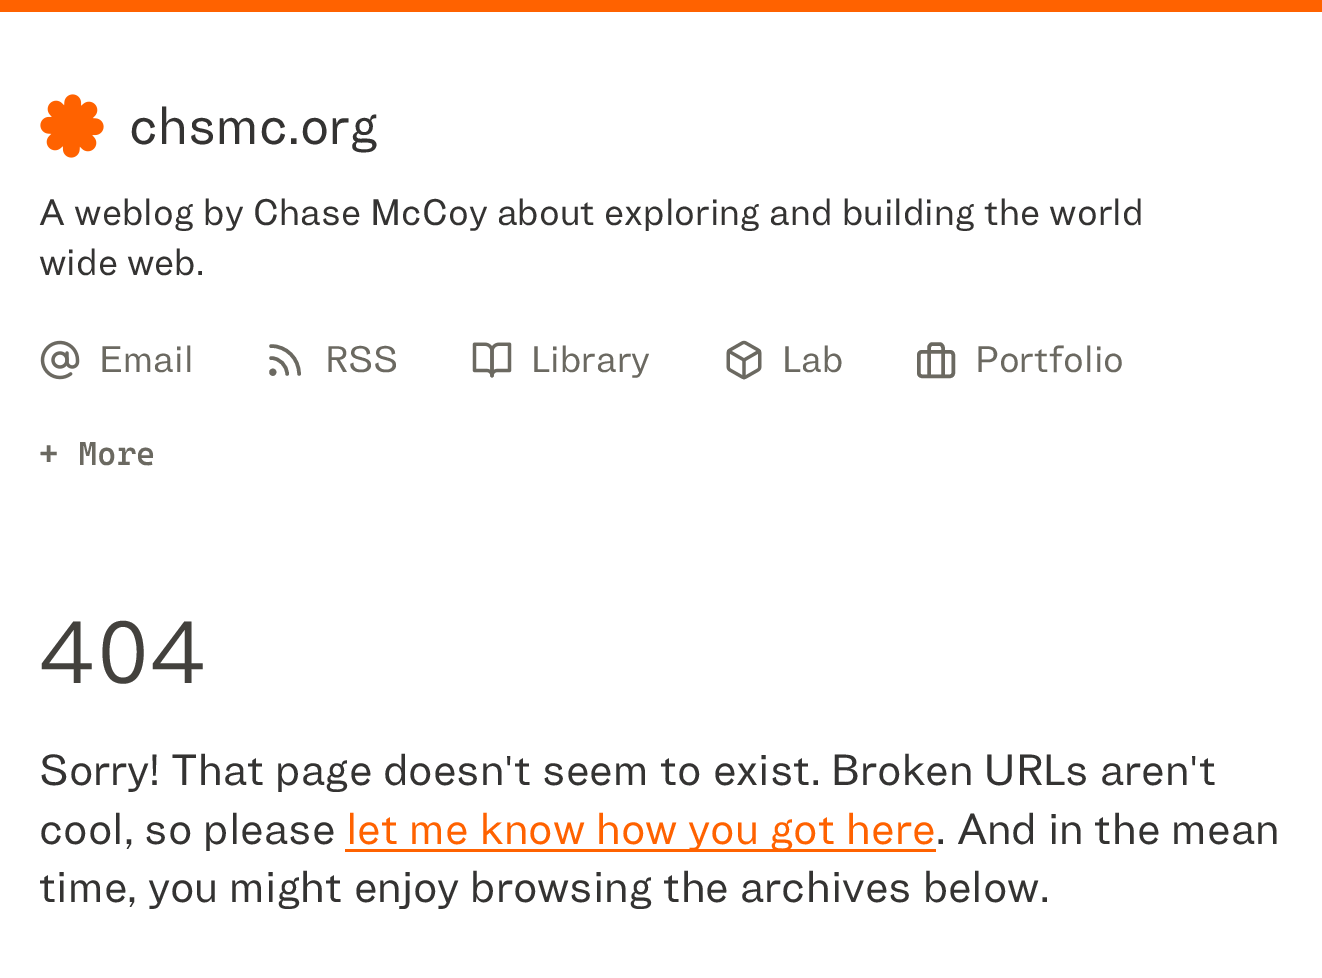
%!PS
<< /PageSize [1322 978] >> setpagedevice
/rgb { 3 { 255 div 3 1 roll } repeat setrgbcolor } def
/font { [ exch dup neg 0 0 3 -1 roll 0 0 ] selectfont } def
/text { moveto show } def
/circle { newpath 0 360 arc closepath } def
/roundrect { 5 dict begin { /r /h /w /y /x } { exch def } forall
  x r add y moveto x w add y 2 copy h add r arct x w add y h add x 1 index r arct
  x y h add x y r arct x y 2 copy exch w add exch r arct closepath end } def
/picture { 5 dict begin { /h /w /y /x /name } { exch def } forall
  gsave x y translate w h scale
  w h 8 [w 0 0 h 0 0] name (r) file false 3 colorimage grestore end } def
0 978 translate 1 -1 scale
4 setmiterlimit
255 255 255 rgb
0 0 1322 978 rectfill
255 98 0 rgb
0 0 1322 12 rectfill
(img_01.rgb) 40 94 64 64 picture
(img_02.rgb) 40 340 40 40 picture
107 105 97 rgb
3.5 setlinewidth
1 setlinecap
1 setlinejoin
271 358 moveto 8.5 0 16 7.5 16 16 rcurveto 271 346 moveto 15.5 0 28 12.5 28 28 rcurveto stroke
0 setlinecap
0 setlinejoin
272.8 372.2 1.8 circle stroke
(img_03.rgb) 472 342 40 36 picture
(img_04.rgb) 726 340 36 40 picture
918.75 351.75 34.5 24.5 3.25 roundrect stroke
1 setlinecap
1 setlinejoin
943 376 moveto 0 -28 rlineto 0 -2 -1.5 -4 -3.5 -4 rcurveto -7 0 rlineto -2 0 -3.5 2 -3.5 4 rcurveto 0 28 rlineto stroke
255 98 0 rgb
345 849 591 3 rectfill
/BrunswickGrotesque-Regular 46.75 font
52 51 50 rgb
(chsmc.org) 129 144 text
/BrunswickGrotesque-Regular 33.15 font
(A weblog by Chase McCoy about exploring and building the world) 39 225 text
(wide web.) 39 275 text
107 105 97 rgb
(Email) 99 372 text
(RSS) 325 372 text
(Library) 531 372 text
(Lab) 782 372 text
(Portfolio) 975 372 text
/CascadiaMono-Medium 33.15 font
(+ More) 39 465 text
/BrunswickGrotesque-Regular 79 font
67 65 61 rgb
(404) 39 683 text
/BrunswickGrotesque-Regular 39 font
52 51 50 rgb
(Sorry! That page doesn't seem to exist. Broken URLs aren't) 39 785 text
(cool, so please) 39 844 text
255 98 0 rgb
(let me know how you got here) 346 844 text
52 51 50 rgb
(. And in the mean) 936 844 text
(time, you might enjoy browsing the archives below.) 39 902 text
showpage
